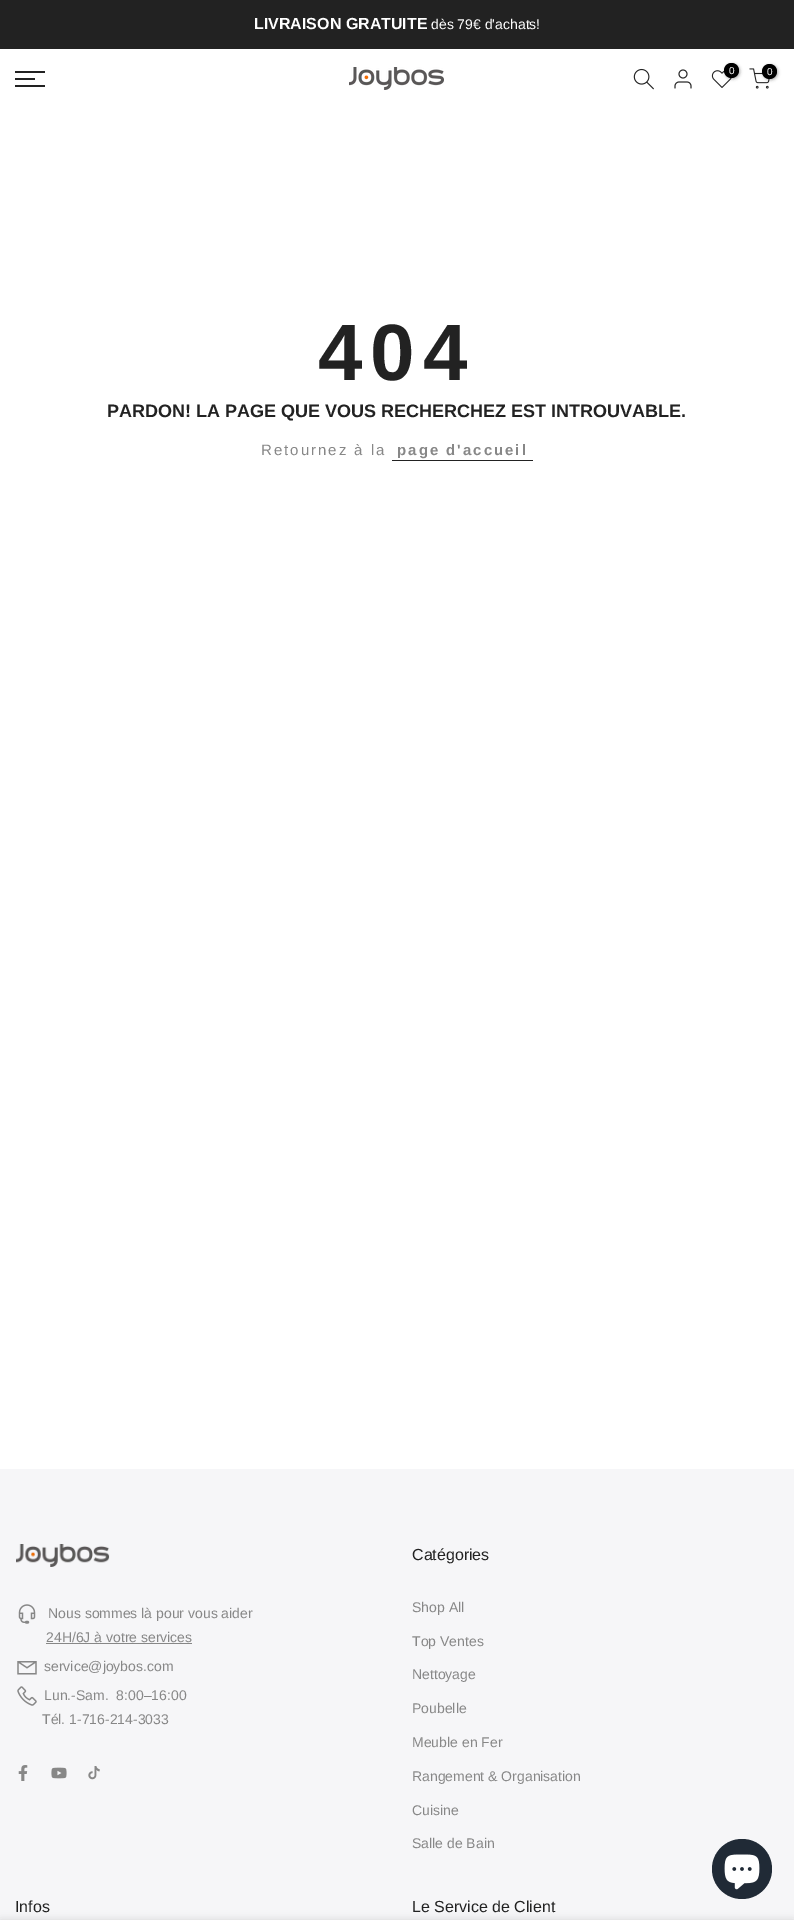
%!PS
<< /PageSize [794 1920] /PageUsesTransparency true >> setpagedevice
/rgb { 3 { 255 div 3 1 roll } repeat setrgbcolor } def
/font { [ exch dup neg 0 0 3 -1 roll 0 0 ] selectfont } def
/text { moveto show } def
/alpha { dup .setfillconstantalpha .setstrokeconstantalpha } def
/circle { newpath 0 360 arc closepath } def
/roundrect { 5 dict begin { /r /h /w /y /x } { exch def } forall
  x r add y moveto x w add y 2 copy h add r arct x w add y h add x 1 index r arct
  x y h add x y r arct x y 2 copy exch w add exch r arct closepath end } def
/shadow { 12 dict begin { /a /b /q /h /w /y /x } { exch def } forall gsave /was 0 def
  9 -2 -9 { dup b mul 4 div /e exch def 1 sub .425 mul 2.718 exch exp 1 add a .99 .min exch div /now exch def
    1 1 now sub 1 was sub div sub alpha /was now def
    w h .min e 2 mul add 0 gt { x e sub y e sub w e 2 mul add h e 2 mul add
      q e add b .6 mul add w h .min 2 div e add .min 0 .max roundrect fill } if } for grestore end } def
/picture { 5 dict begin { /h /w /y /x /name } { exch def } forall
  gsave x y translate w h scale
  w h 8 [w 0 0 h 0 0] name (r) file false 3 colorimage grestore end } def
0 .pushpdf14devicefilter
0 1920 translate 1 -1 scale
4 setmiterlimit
255 255 255 rgb
0 0 794 1920 rectfill
34 34 34 rgb
0 0 794 49 rectfill
15 71 30 2 rectfill
15 78 20 2 rectfill
15 85 30 2 rectfill
(img_01.rgb) 349 67 95 23 picture
(img_02.rgb) 633 68 21 22 picture
(img_03.rgb) 674 69 18 20 picture
(img_04.rgb) 711 70 21 18 picture
0 0 0 rgb
725 64 15 15 7.5 1.5 0.3 shadow
731.5 70.5 7.5 circle fill
(img_05.rgb) 749 68 21 21 picture
763 65 15 15 7.5 1.5 0.3 shadow
769.5 71.5 7.5 circle fill
34 34 34 rgb
392 460 141 1 rectfill
246 246 248 rgb
0 1469 794 451 rectfill
(img_06.rgb) 16 1544 94 23 picture
(img_07.rgb) 18 1604 18 20 picture
135 135 135 rgb
46 1643 146 1 rectfill
(img_08.rgb) 17 1661 20 14 picture
(img_09.rgb) 17 1686 20 20 picture
(img_10.rgb) 18 1765 10 16 picture
(img_11.rgb) 51 1767 16 12 picture
(img_12.rgb) 88 1766 12 14 picture
32 42 54 rgb
742 1869 30 circle fill
(img_13.rgb) 724 1854 36 36 picture
0 0 0 rgb
0 1920 794 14 0 4.5 0.14 shadow
/LiberationSans-Bold 16 font
255 255 255 rgb
(LIVRAISON GRATUITE) 254 29 text
/LiberationSans-Regular 14 font
(dès 79€ d'achats!) 431 29 text
/LiberationSans-Regular 10 font
(0) 729 74 text
(0) 767 75 text
/LiberationSans-Bold 80 font
34 34 34 rgb
318 380 moveto 8 0 (404) ashow
/LiberationSans-Bold 18 font
(PARDON! LA PAGE QUE VOUS RECHERCHEZ EST INTROUVABLE.) 107 417 text
/LiberationSans-Regular 15 font
135 135 135 rgb
261 455 moveto 2 0 (Retournez à la) ashow
/LiberationSans-Bold 15 font
397 455 moveto 2 0 (page d'accueil) ashow
/LiberationSans-Regular 14 font
(Nous sommes là pour vous aider) 48 1618 text
(24H/6J à votre services) 46 1642 text
(service@joybos.com) 44 1671 text
(Lun.-Sam.  8:00–16:00) 44 1700 text
(Tél. 1-716-214-3033) 42 1724 text
/LiberationSans-Regular 16 font
34 34 34 rgb
(Catégories) 412 1560 text
/LiberationSans-Regular 14 font
135 135 135 rgb
(Shop All) 412 1612 text
(Top Ventes) 412 1646 text
(Nettoyage) 412 1679 text
(Poubelle) 412 1713 text
(Meuble en Fer) 412 1747 text
(Rangement & Organisation) 412 1781 text
(Cuisine) 412 1815 text
(Salle de Bain) 412 1848 text
/LiberationSans-Regular 16 font
34 34 34 rgb
(Infos) 15 1912 text
(Le Service de Client) 412 1912 text
.poppdf14devicefilter showpage
